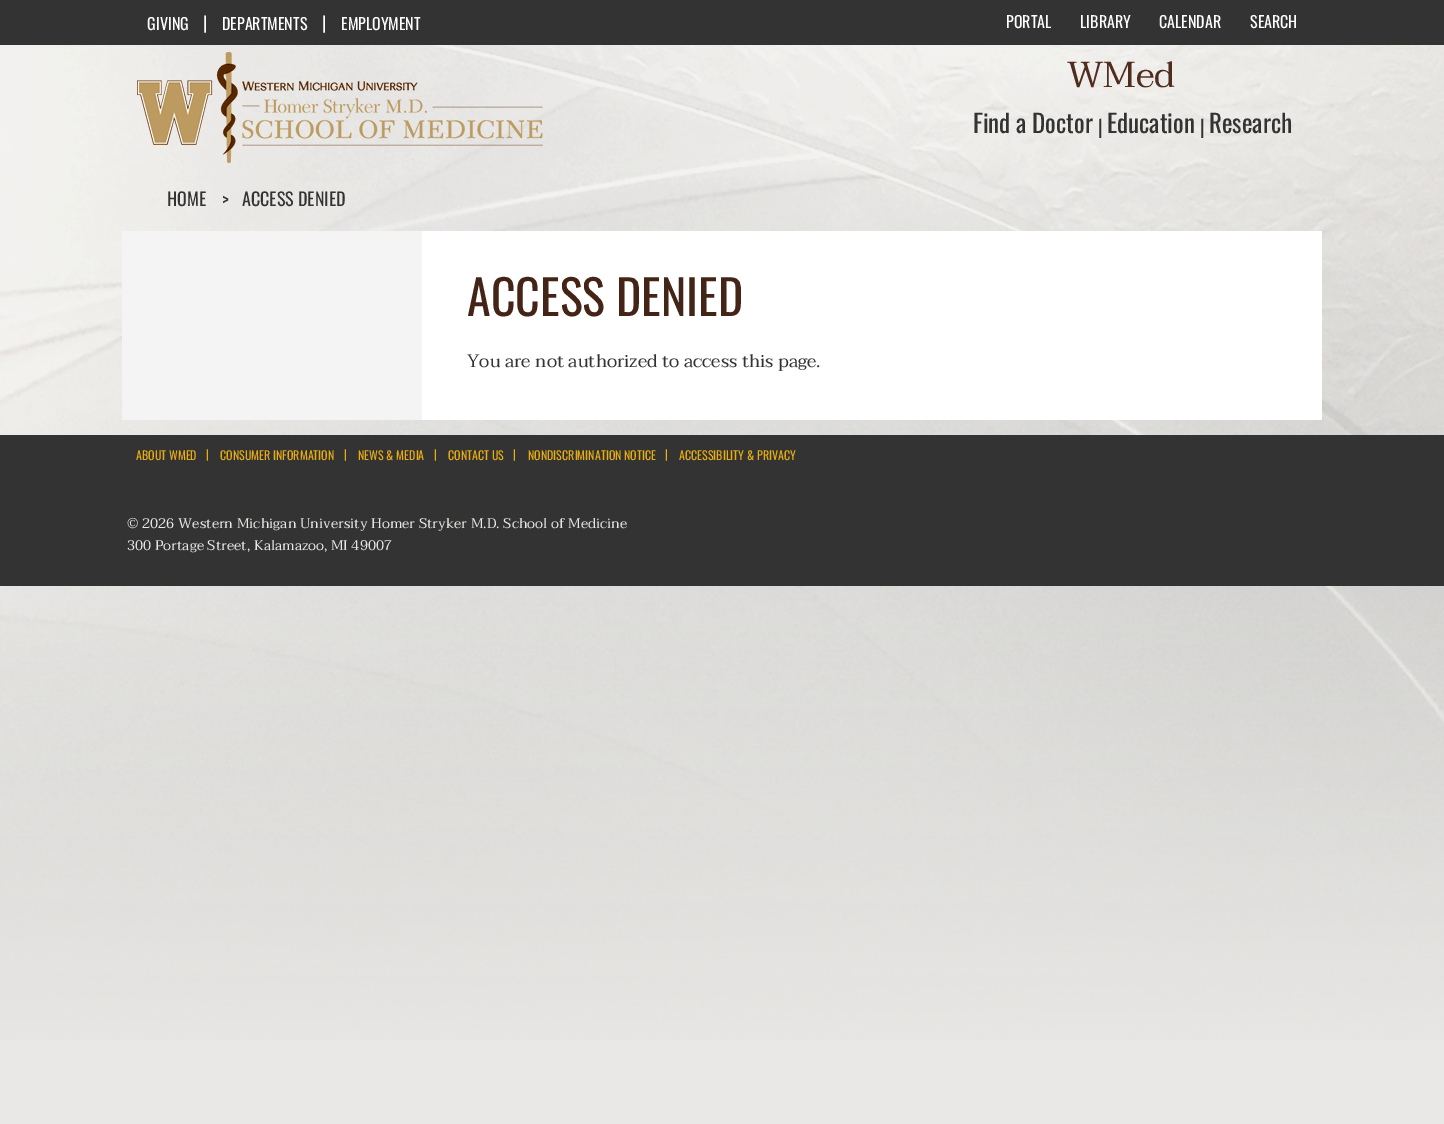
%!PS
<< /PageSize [1444 1124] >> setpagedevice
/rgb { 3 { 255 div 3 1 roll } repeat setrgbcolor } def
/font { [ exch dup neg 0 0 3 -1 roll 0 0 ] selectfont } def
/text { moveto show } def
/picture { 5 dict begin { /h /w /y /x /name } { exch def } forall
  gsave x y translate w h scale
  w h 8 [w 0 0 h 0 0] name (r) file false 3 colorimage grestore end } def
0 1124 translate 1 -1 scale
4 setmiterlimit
233 232 230 rgb
0 0 1444 1124 rectfill
(img_01.rgb) 0 45 1444 995 picture
51 51 51 rgb
0 0 1444 45 rectfill
(img_02.rgb) 137 52 406 111 picture
244 244 244 rgb
122 231 300 189 rectfill
255 255 255 rgb
422 231 900 189 rectfill
51 51 51 rgb
0 435 1444 151 rectfill
/Oswald-Regular 16 font
255 255 255 rgb
(GIVING) 147 30 text
/Oswald-Regular 18 font
(|) 203 30 text
/Oswald-Regular 16 font
(DEPARTMENTS) 222 30 text
/Oswald-Regular 18 font
(|) 322 30 text
/Oswald-Regular 16 font
(EMPLOYMENT) 341 30 text
(PORTAL) 1006 28 text
(LIBRARY) 1080 28 text
(CALENDAR) 1159 28 text
(SEARCH) 1250 28 text
/Taviraj-Regular 36 font
79 44 29 rgb
(WMed) 1067 87 text
/Oswald-Regular 25 font
51 51 51 rgb
(Find a Doctor) 973 133 text
/Oswald-Regular 20 font
(|) 1098 135 text
/Oswald-Regular 25 font
(Education) 1107 133 text
/Oswald-Regular 20 font
(|) 1200 135 text
/Oswald-Regular 25 font
(Research) 1209 133 text
/Oswald-Regular 18 font
(HOME) 167 206 text
(>) 222 207 text
(ACCESS DENIED) 242 206 text
/Oswald-Regular 48 font
68 36 22 rgb
(ACCESS DENIED) 467 316 text
/Taviraj-Regular 18 font
51 51 51 rgb
(You are not authorized to access this page.) 467 367 text
/Oswald-Regular 12 font
233 173 17 rgb
(ABOUT WMED) 136 460 text
(|) 206 459 text
(CONSUMER INFORMATION) 220 460 text
(|) 344 459 text
(NEWS & MEDIA) 358 460 text
(|) 434 459 text
(CONTACT US) 448 460 text
(|) 513 459 text
(NONDISCRIMINATION NOTICE) 528 460 text
(|) 665 459 text
(ACCESSIBILITY & PRIVACY) 679 460 text
/Taviraj-Regular 14 font
233 232 230 rgb
(© 2026 Western Michigan University Homer Stryker M.D. School of Medicine) 127 528 text
(300 Portage Street, Kalamazoo, MI 49007) 127 550 text
showpage
